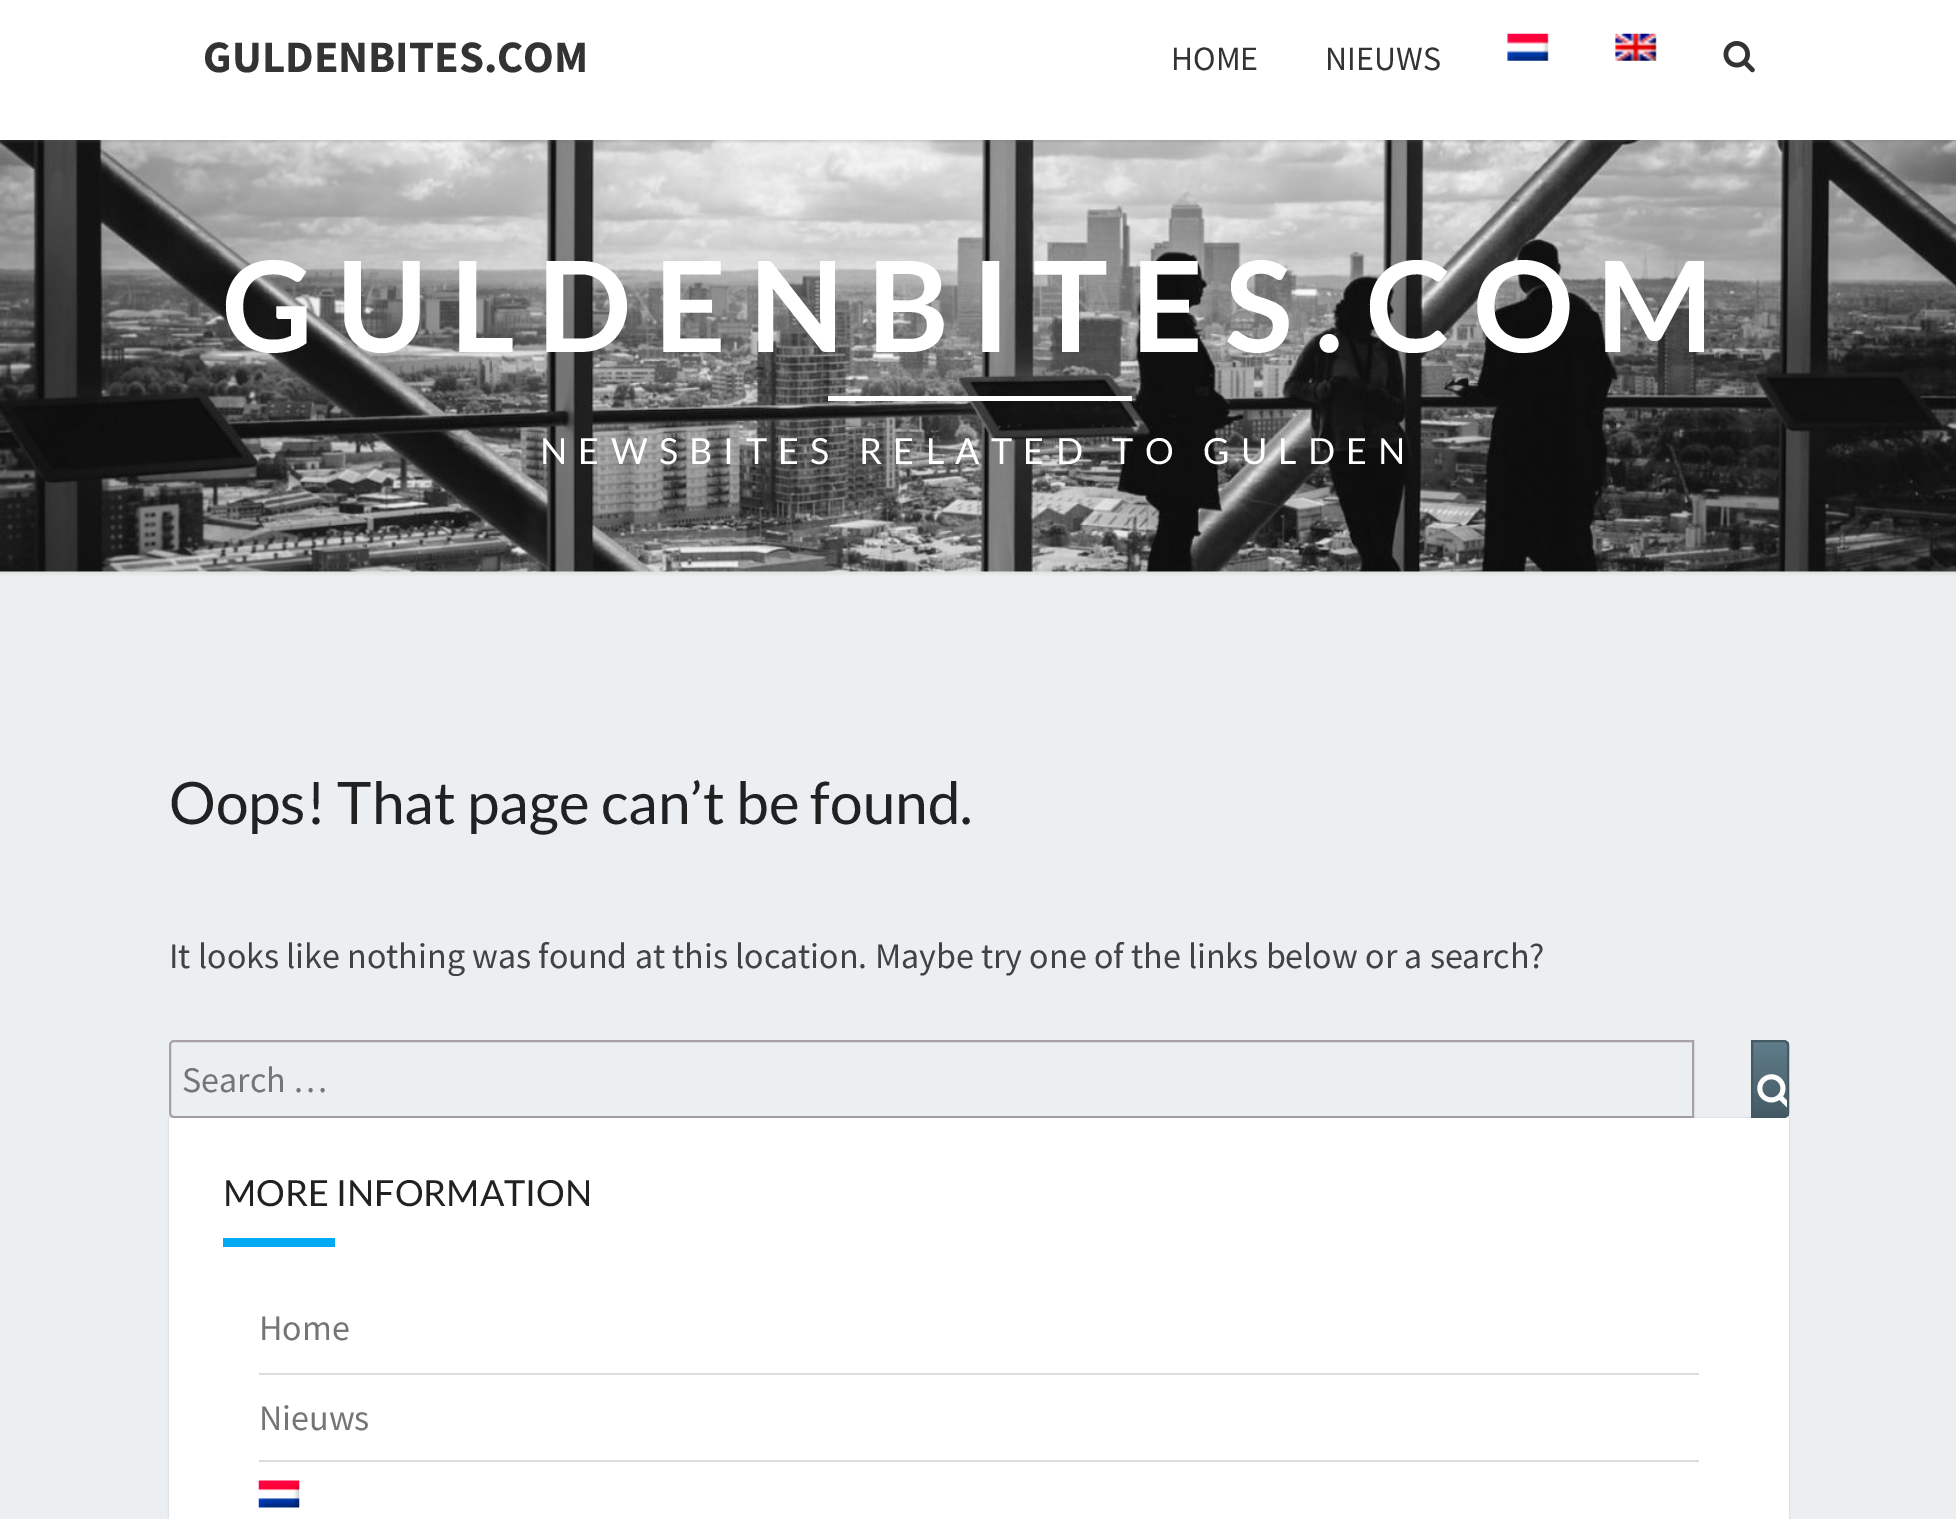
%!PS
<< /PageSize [1956 1519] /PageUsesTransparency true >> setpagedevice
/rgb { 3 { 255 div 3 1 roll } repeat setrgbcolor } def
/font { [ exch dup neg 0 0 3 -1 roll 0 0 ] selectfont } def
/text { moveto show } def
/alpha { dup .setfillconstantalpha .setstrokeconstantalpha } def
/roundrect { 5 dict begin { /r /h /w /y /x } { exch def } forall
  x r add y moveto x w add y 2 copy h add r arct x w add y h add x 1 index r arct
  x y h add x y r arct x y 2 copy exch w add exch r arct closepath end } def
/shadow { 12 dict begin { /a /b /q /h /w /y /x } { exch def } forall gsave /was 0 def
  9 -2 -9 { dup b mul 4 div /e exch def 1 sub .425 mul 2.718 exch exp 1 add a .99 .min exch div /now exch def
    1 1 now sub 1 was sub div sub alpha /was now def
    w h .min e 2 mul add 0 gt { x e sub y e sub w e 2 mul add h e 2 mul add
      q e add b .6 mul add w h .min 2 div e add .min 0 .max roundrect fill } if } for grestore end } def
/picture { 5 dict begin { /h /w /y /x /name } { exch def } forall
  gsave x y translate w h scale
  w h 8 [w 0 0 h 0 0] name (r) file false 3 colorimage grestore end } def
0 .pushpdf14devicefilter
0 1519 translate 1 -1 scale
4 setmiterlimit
236 239 241 rgb
0 0 1956 1519 rectfill
182 182 182 rgb
-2 137 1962 437 0 2 0.3 shadow
(img_04.rgb) 0 140 1956 432 picture
100 100 100 rgb
0 2 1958 140 0 1 0.2 shadow
255 255 255 rgb
0 0 1956 140 rectfill
(img_01.rgb) 1507 33 42 28 picture
(img_02.rgb) 1615 33 42 28 picture
(img_03.rgb) 1723 41 32 32 picture
828 396 304 5 rectfill
238 238 238 rgb
169 878 1620 2 rectfill
170 161 168 rgb
2 setlinewidth
174 1041 moveto 1519 0 rlineto 0 76 rlineto -1519 0 rlineto -2 0 -4 -2 -4 -4 rcurveto 0 -68 rlineto 0 -2 2 -4 4 -4 rcurveto closepath stroke
gsave
1751 1040 moveto 33 0 rlineto 3 0 5 2 5 5 rcurveto 0 68 rlineto 0 3 -2 5 -5 5 rcurveto -33 0 rlineto closepath clip newpath
gsave 1753 1042 moveto 36 0 rlineto 0 74 rlineto -36 0 rlineto closepath clip newpath
<< /ShadingType 2 /ColorSpace /DeviceRGB /Coords [1770 1042 1770 1116] /Extend [true true] /Function << /FunctionType 2 /Domain [0 1] /C0 [0.376 0.49 0.545] /C1 [0.271 0.353 0.392] /N 1 >> >> shfill grestore
grestore
69 90 100 rgb
1752 1041 moveto 32 0 rlineto 2 0 4 2 4 4 rcurveto 0 68 rlineto 0 2 -2 4 -4 4 rcurveto -32 0 rlineto closepath stroke
(img_05.rgb) 1757 1074 30 34 picture
0 0 0 rgb
169 1118 1620 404 0 1 0.15 shadow
255 255 255 rgb
169 1118 1620 401 rectfill
3 169 244 rgb
223 1238 112 9 rectfill
221 221 221 rgb
259 1373 1440 2 rectfill
259 1460 1440 2 rectfill
(img_06.rgb) 258 1480 42 28 picture
/SourceSansPro-Bold 45 font
51 51 51 rgb
(GULDENBITES.COM) 203 72 text
/SourceSansPro-Regular 34 font
(HOME) 1171 70 text
(NIEUWS) 1325 70 text
/Lato-Bold 126 font
255 255 255 rgb
222 352 moveto 22.5 0 (GULDENBITES.COM) ashow
/Lato-Regular 36 font
540 464 moveto 11.25 0 (NEWSBITES RELATED TO GULDEN) ashow
/Lato-Regular 58.5 font
33 33 33 rgb
(Oops! That page can’t be found.) 169 824 text
/SourceSansPro-Regular 36 font
66 66 66 rgb
(It looks like nothing was found at this location. Maybe try one of the links below or a search?) 169 968 text
117 117 117 rgb
(Search …) 182 1092 text
/Lato-Regular 36 font
33 33 33 rgb
(MORE INFORMATION) 223 1206 text
/SourceSansPro-Regular 36 font
117 117 117 rgb
(Home) 259 1340 text
(Nieuws) 259 1430 text
.poppdf14devicefilter showpage
